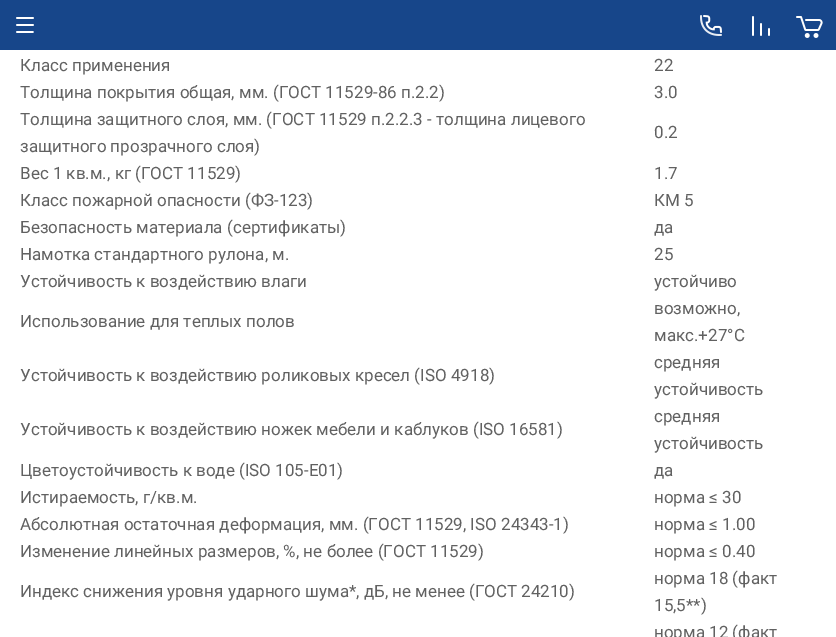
%!PS
<< /PageSize [836 637] >> setpagedevice
/rgb { 3 { 255 div 3 1 roll } repeat setrgbcolor } def
/font { [ exch dup neg 0 0 3 -1 roll 0 0 ] selectfont } def
/text { moveto show } def
/picture { 5 dict begin { /h /w /y /x /name } { exch def } forall
  gsave x y translate w h scale
  w h 8 [w 0 0 h 0 0] name (r) file false 3 colorimage grestore end } def
0 637 translate 1 -1 scale
4 setmiterlimit
255 255 255 rgb
0 0 836 637 rectfill
23 70 138 rgb
0 0 836 50 rectfill
(img_01.rgb) 16 17 18 16 picture
(img_02.rgb) 700 15 22 21 picture
(img_03.rgb) 752 16 18 20 picture
(img_04.rgb) 796 16 27 22 picture
/Roboto-Regular 17 font
97 97 97 rgb
(Класс применения) 20 71 text
(22) 654 71 text
(Толщина покрытия общая, мм. \(ГОСТ 11529-86 п.2.2\)) 20 98 text
(3.0) 654 98 text
(Толщина защитного слоя, мм. \(ГОСТ 11529 п.2.2.3 - толщина лицевого) 20 125 text
(защитного прозрачного слоя\)) 20 152 text
(0.2) 654 138 text
(Вес 1 кв.м., кг \(ГОСТ 11529\)) 20 179 text
(1.7) 654 179 text
(Класс пожарной опасности \(ФЗ-123\)) 20 206 text
(КМ 5) 654 206 text
(Безопасность материала \(сертификаты\)) 20 233 text
(да) 654 233 text
(Намотка стандартного рулона, м.) 20 260 text
(25) 654 260 text
(Устойчивость к воздействию влаги) 20 287 text
(устойчиво) 654 287 text
(Использование для теплых полов) 20 327 text
(возможно,) 654 314 text
(макс.+27°С) 654 341 text
(Устойчивость к воздействию роликовых кресел \(ISO 4918\)) 20 381 text
(средняя) 654 368 text
(устойчивость) 654 395 text
(Устойчивость к воздействию ножек мебели и каблуков \(ISO 16581\)) 20 435 text
(средняя) 654 422 text
(устойчивость) 654 449 text
(Цветоустойчивость к воде \(ISO 105-E01\)) 20 476 text
(да) 654 476 text
(Истираемость, г/кв.м.) 20 503 text
(норма ≤ 30) 654 503 text
(Абсолютная остаточная деформация, мм. \(ГОСТ 11529, ISO 24343-1\)) 20 530 text
(норма ≤ 1.00) 654 530 text
(Изменение линейных размеров, %, не более \(ГОСТ 11529\)) 20 557 text
(норма ≤ 0.40) 654 557 text
(Индекс снижения уровня ударного шума*, дБ, не менее \(ГОСТ 24210\)) 20 597 text
(норма 18 \(факт) 654 584 text
(15,5**\)) 654 611 text
(норма 12 \(факт) 654 638 text
showpage
